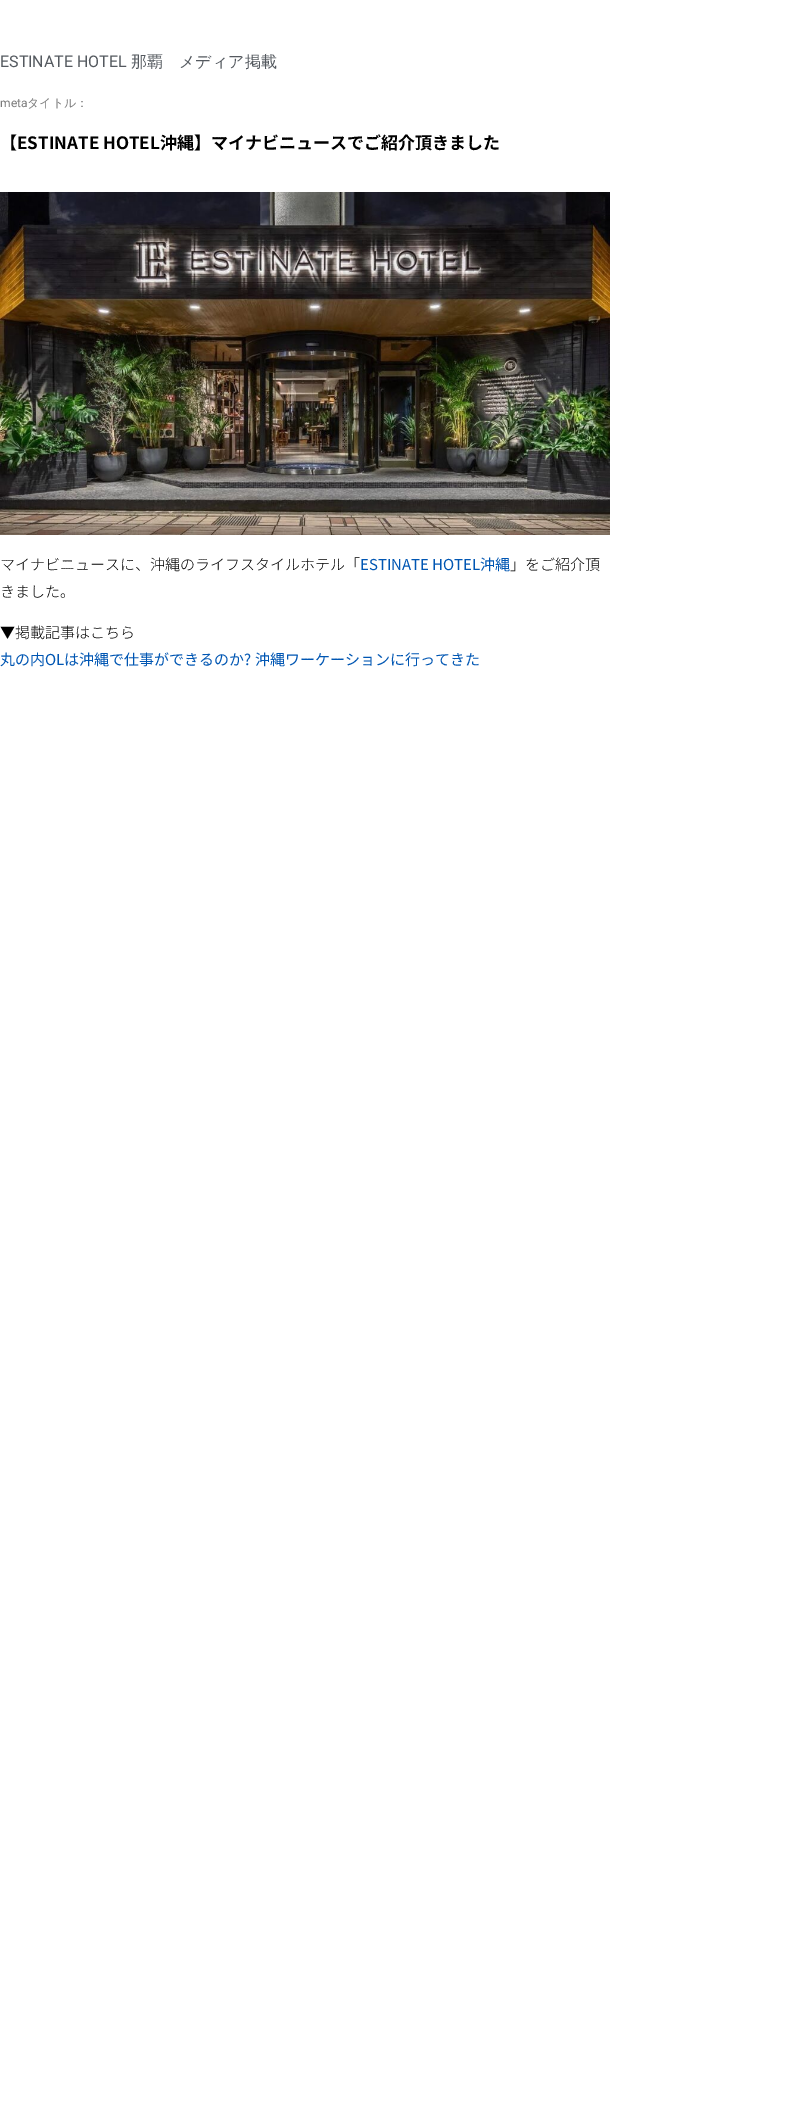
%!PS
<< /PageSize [810 2111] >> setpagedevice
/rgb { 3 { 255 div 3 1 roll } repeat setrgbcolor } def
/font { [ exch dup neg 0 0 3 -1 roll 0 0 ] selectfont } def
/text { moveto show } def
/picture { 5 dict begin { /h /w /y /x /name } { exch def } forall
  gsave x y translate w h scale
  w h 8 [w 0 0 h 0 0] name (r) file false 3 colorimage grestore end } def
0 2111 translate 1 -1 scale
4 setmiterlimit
255 255 255 rgb
0 0 810 2111 rectfill
(img_01.rgb) 0 192 610 343 picture
/Roboto-Regular 16 font
84 89 95 rgb
(ESTINATE HOTEL) 0 67 text
/WenQuanYiZenHei-Medium 16 font
(那覇) 131 67 text
(メディア掲載) 179 67 text
/Roboto-Regular 12 font
122 122 122 rgb
(meta) 0 107 text
/WenQuanYiZenHei-Medium 12 font
(タイトル：) 27 107 text
/NotoSansJP-Bold 17 font
0 0 0 rgb
(【ESTINATE HOTEL沖縄】マイナビニュースでご紹介頂きました) 0 149 text
/NotoSansJP-Light 15 font
(マイナビニュースに、沖縄のライフスタイルホテル「) 0 570 text
/NotoSansJP-Regular 15 font
0 86 179 rgb
(ESTINATE HOTEL沖縄) 360 570 text
/NotoSansJP-Light 15 font
0 0 0 rgb
(」をご紹介頂) 510 570 text
(きました。) 0 597 text
(▼掲載記事はこちら) 0 638 text
/NotoSansJP-Regular 15 font
0 86 179 rgb
(丸の内OLは沖縄で仕事ができるのか? 沖縄ワーケーションに行ってきた) 0 665 text
showpage
